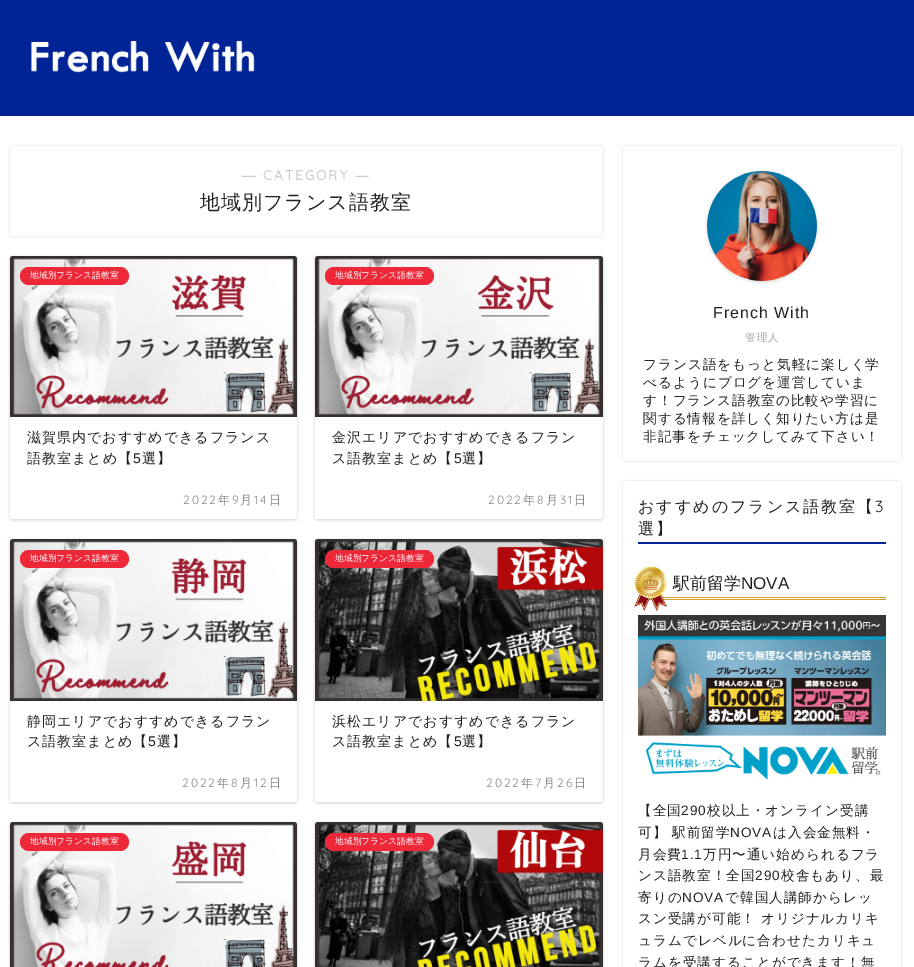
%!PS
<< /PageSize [914 967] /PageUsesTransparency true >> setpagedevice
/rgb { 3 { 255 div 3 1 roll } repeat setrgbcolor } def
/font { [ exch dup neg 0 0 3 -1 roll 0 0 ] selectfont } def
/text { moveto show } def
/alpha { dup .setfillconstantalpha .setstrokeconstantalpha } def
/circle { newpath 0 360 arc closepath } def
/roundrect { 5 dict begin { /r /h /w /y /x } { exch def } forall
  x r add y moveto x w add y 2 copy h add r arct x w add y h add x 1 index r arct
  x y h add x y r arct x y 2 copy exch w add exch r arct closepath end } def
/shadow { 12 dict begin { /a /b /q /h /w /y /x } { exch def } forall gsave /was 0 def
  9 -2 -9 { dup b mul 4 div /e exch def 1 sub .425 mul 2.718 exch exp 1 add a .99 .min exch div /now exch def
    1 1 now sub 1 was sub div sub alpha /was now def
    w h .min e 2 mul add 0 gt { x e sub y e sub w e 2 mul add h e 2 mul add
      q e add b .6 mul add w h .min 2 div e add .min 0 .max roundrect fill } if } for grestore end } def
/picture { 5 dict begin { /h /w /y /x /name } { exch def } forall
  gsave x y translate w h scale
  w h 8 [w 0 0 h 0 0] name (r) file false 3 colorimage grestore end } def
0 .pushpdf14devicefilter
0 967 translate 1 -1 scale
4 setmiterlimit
255 255 255 rgb
0 0 914 967 rectfill
0 35 149 rgb
0 0 914 116 rectfill
(img_01.rgb) 30 40 225 33 picture
0 0 0 rgb
10 146 593 90 2 1 0.18 shadow
255 255 255 rgb
10 146 593 90 2 roundrect fill
0 0 0 rgb
10 257 287 263 2 1.5 0.18 shadow
255 255 255 rgb
10 256 287 263 2 roundrect fill
(img_02.rgb) 10 256 287 161 picture
237 41 57 rgb
20 267 109 18 9 roundrect fill
0 0 0 rgb
315 257 288 263 2 1.5 0.18 shadow
255 255 255 rgb
315 256 288 263 2 roundrect fill
(img_03.rgb) 315 256 288 161 picture
237 41 57 rgb
325 267 109 18 9 roundrect fill
0 0 0 rgb
10 540 287 263 2 1.5 0.18 shadow
255 255 255 rgb
10 539 287 263 2 roundrect fill
(img_04.rgb) 10 539 287 162 picture
237 41 57 rgb
20 550 109 18 9 roundrect fill
0 0 0 rgb
315 540 288 263 2 1.5 0.18 shadow
255 255 255 rgb
315 539 288 263 2 roundrect fill
(img_05.rgb) 315 539 288 162 picture
237 41 57 rgb
325 550 109 18 9 roundrect fill
0 0 0 rgb
10 823 287 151 2 1.5 0.18 shadow
(img_06.rgb) 10 822 287 145 picture
237 41 57 rgb
20 833 109 18 9 roundrect fill
0 0 0 rgb
315 823 288 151 2 1.5 0.18 shadow
(img_07.rgb) 315 822 288 145 picture
237 41 57 rgb
325 833 109 18 9 roundrect fill
0 0 0 rgb
623 146 278 315 2 1 0.18 shadow
255 255 255 rgb
623 146 278 315 2 roundrect fill
0 0 0 rgb
707 172 110 110 55 1.5 0.18 shadow
255 255 255 rgb
762 226 55 circle fill
(img_08.rgb) 707 171 110 110 picture
0 0 0 rgb
623 481 278 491 2 1 0.18 shadow
255 255 255 rgb
623 481 278 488 2 roundrect fill
0 35 149 rgb
638 542 248 2 rectfill
208 159 48 rgb
638 597 248 1 rectfill
649 599 237 1 rectfill
(img_09.rgb) 634 566 33 45 picture
(img_10.rgb) 638 615 248 165 picture
/LiberationSans-Bold 13.6 font
204 204 204 rgb
242 180 moveto 2 0 (―) ashow
/Quicksand-Bold 13.6 font
263 180 moveto 2 0 (CATEGORY) ashow
/LiberationSans-Bold 13.6 font
355 180 moveto 2 0 (―) ashow
/WenQuanYiZenHei-Medium 20 font
33 33 33 rgb
200 209 moveto 1 0 (地域別フランス語教室) ashow
/WenQuanYiZenHei-Medium 8.75 font
255 255 255 rgb
(地域別フランス語教室) 30 278 text
/WenQuanYiZenHei-Medium 14 font
33 33 33 rgb
27 442 moveto 1 0 (滋賀県内でおすすめできるフランス) ashow
27 463 moveto 1 0 (語教室まとめ【) ashow
/LiberationSans-Regular 14 font
133 463 moveto 1 0 (5) ashow
/WenQuanYiZenHei-Medium 14 font
142 463 moveto 1 0 (選】) ashow
/Quicksand-Light 12 font
136 136 136 rgb
183 504 moveto 2 0 (2022) ashow
/WenQuanYiZenHei-Medium 12 font
218 504 moveto 2 0 (年) ashow
/Quicksand-Light 12 font
232 504 moveto 2 0 (9) ashow
/WenQuanYiZenHei-Medium 12 font
240 504 moveto 2 0 (月) ashow
/Quicksand-Light 12 font
254 504 moveto 2 0 (14) ashow
/WenQuanYiZenHei-Medium 12 font
269 504 moveto 2 0 (日) ashow
/WenQuanYiZenHei-Medium 8.75 font
255 255 255 rgb
(地域別フランス語教室) 335 278 text
/WenQuanYiZenHei-Medium 14 font
33 33 33 rgb
332 442 moveto 1 0 (金沢エリアでおすすめできるフラン) ashow
332 463 moveto 1 0 (ス語教室まとめ【) ashow
/LiberationSans-Regular 14 font
454 463 moveto 1 0 (5) ashow
/WenQuanYiZenHei-Medium 14 font
462 463 moveto 1 0 (選】) ashow
/Quicksand-Light 12 font
136 136 136 rgb
488 504 moveto 2 0 (2022) ashow
/WenQuanYiZenHei-Medium 12 font
523 504 moveto 2 0 (年) ashow
/Quicksand-Light 12 font
537 504 moveto 2 0 (8) ashow
/WenQuanYiZenHei-Medium 12 font
546 504 moveto 2 0 (月) ashow
/Quicksand-Light 12 font
560 504 moveto 2 0 (31) ashow
/WenQuanYiZenHei-Medium 12 font
574 504 moveto 2 0 (日) ashow
/WenQuanYiZenHei-Medium 8.75 font
255 255 255 rgb
(地域別フランス語教室) 30 561 text
/WenQuanYiZenHei-Medium 14 font
33 33 33 rgb
27 726 moveto 1 0 (静岡エリアでおすすめできるフラン) ashow
27 746 moveto 1 0 (ス語教室まとめ【) ashow
/LiberationSans-Regular 14 font
148 746 moveto 1 0 (5) ashow
/WenQuanYiZenHei-Medium 14 font
157 746 moveto 1 0 (選】) ashow
/Quicksand-Light 12 font
136 136 136 rgb
182 787 moveto 2 0 (2022) ashow
/WenQuanYiZenHei-Medium 12 font
217 787 moveto 2 0 (年) ashow
/Quicksand-Light 12 font
231 787 moveto 2 0 (8) ashow
/WenQuanYiZenHei-Medium 12 font
240 787 moveto 2 0 (月) ashow
/Quicksand-Light 12 font
254 787 moveto 2 0 (12) ashow
/WenQuanYiZenHei-Medium 12 font
269 787 moveto 2 0 (日) ashow
/WenQuanYiZenHei-Medium 8.75 font
255 255 255 rgb
(地域別フランス語教室) 335 561 text
/WenQuanYiZenHei-Medium 14 font
33 33 33 rgb
332 726 moveto 1 0 (浜松エリアでおすすめできるフラン) ashow
332 746 moveto 1 0 (ス語教室まとめ【) ashow
/LiberationSans-Regular 14 font
454 746 moveto 1 0 (5) ashow
/WenQuanYiZenHei-Medium 14 font
462 746 moveto 1 0 (選】) ashow
/Quicksand-Light 12 font
136 136 136 rgb
486 787 moveto 2 0 (2022) ashow
/WenQuanYiZenHei-Medium 12 font
521 787 moveto 2 0 (年) ashow
/Quicksand-Light 12 font
535 787 moveto 2 0 (7) ashow
/WenQuanYiZenHei-Medium 12 font
543 787 moveto 2 0 (月) ashow
/Quicksand-Light 12 font
557 787 moveto 2 0 (26) ashow
/WenQuanYiZenHei-Medium 12 font
574 787 moveto 2 0 (日) ashow
/WenQuanYiZenHei-Medium 8.75 font
255 255 255 rgb
(地域別フランス語教室) 30 844 text
(地域別フランス語教室) 335 844 text
/LiberationSans-Regular 16 font
33 33 33 rgb
713 318 moveto 1 0 (French With) ashow
/WenQuanYiZenHei-Medium 10.5 font
166 166 166 rgb
745 341 moveto 1 0 (管理人) ashow
/WenQuanYiZenHei-Medium 13.6 font
33 33 33 rgb
643 369 moveto 1 0 (フランス語をもっと気軽に楽しく学) ashow
643 387 moveto 1 0 (べるようにブログを運営していま) ashow
643 405 moveto 1 0 (す！フランス語教室の比較や学習に) ashow
643 423 moveto 1 0 (関する情報を詳しく知りたい方は是) ashow
643 441 moveto 1 0 (非記事をチェックしてみて下さい！) ashow
/WenQuanYiZenHei-Medium 16 font
638 512 moveto 2 0 (おすすめのフランス語教室【) ashow
/Quicksand-Light 16 font
875 512 moveto 2 0 (3) ashow
/WenQuanYiZenHei-Medium 16 font
638 534 moveto 2 0 (選】) ashow
/WenQuanYiZenHei-Medium 17 font
(駅前留学) 673 589 text
/LiberationSans-Regular 17 font
(NOVA) 741 589 text
/WenQuanYiZenHei-Medium 13.6 font
638 815 moveto 1 0 (【全国) ashow
/LiberationSans-Regular 13.6 font
681 815 moveto 1 0 (290) ashow
/WenQuanYiZenHei-Medium 13.6 font
707 815 moveto 1 0 (校以上・オンライン受講) ashow
638 837 moveto 1 0 (可】 駅前留学) ashow
/LiberationSans-Regular 13.6 font
730 837 moveto 1 0 (NOVA) ashow
/WenQuanYiZenHei-Medium 13.6 font
773 837 moveto 1 0 (は入会金無料・) ashow
638 859 moveto 1 0 (月会費) ashow
/LiberationSans-Regular 13.6 font
681 859 moveto 1 0 (1.1) ashow
/WenQuanYiZenHei-Medium 13.6 font
703 859 moveto 1 0 (万円〜通い始められるフラ) ashow
638 880 moveto 1 0 (ンス語教室！全国) ashow
/LiberationSans-Regular 13.6 font
755 880 moveto 1 0 (290) ashow
/WenQuanYiZenHei-Medium 13.6 font
781 880 moveto 1 0 (校舎もあり、最) ashow
638 902 moveto 1 0 (寄りの) ashow
/LiberationSans-Regular 13.6 font
682 902 moveto 1 0 (NOVA) ashow
/WenQuanYiZenHei-Medium 13.6 font
725 902 moveto 1 0 (で韓国人講師からレッ) ashow
638 923 moveto 1 0 (スン受講が可能！ オリジナルカリキ) ashow
638 945 moveto 1 0 (ュラムでレベルに合わせたカリキュ) ashow
638 967 moveto 1 0 (ラムを受講することができます！無) ashow
.poppdf14devicefilter showpage
